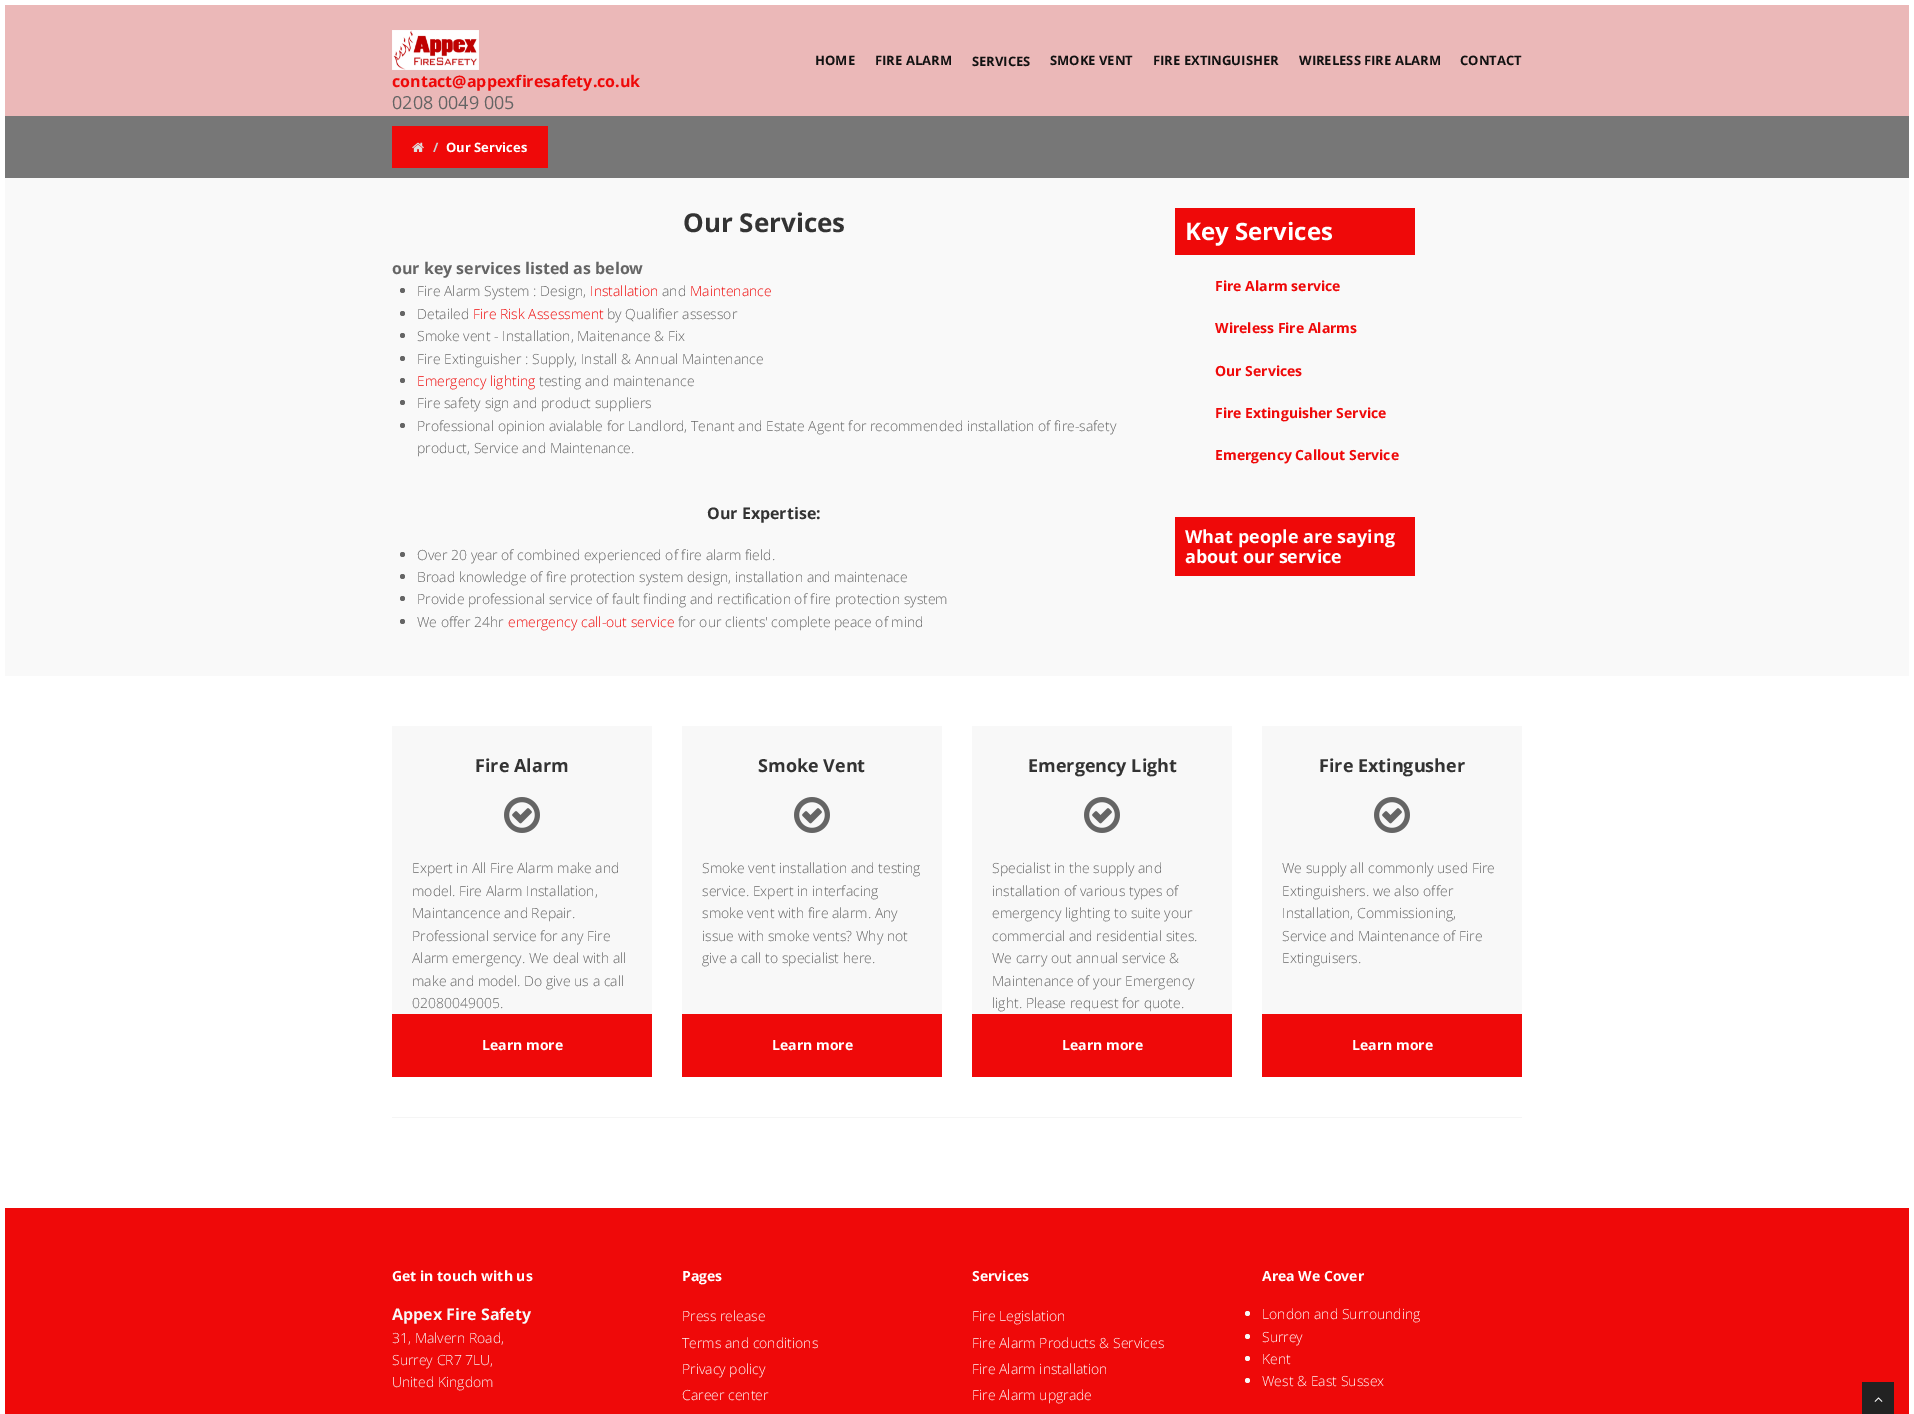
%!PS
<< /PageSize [1914 1414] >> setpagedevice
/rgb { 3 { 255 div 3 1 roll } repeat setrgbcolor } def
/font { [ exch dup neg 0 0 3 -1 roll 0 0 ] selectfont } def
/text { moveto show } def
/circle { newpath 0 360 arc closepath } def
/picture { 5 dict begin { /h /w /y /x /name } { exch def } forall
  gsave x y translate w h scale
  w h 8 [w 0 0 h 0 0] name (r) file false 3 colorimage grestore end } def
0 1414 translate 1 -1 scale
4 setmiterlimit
255 255 255 rgb
0 0 1914 1414 rectfill
235 184 184 rgb
5 5 1904 111 rectfill
(img_01.rgb) 392 30 87 40 picture
119 119 119 rgb
5 116 1904 62 rectfill
239 9 9 rgb
392 126 156 42 rectfill
(img_02.rgb) 412 142 12 10 picture
249 249 249 rgb
5 178 1904 498 rectfill
101 101 101 rgb
402.5 290.5 2.5 circle fill
402.5 313.5 2.5 circle fill
402.5 335.5 2.5 circle fill
402.5 358.5 2.5 circle fill
402.5 380.5 2.5 circle fill
402.5 402.5 2.5 circle fill
402.5 425.5 2.5 circle fill
402.5 554.5 2.5 circle fill
402.5 576.5 2.5 circle fill
402.5 598.5 2.5 circle fill
402.5 621.5 2.5 circle fill
239 9 9 rgb
1175 208 240 47 rectfill
1175 517 240 59 rectfill
248 248 248 rgb
392 726 260 288 rectfill
(img_03.rgb) 504 797 36 36 picture
239 9 9 rgb
392 1014 260 63 rectfill
248 248 248 rgb
682 726 260 288 rectfill
(img_03.rgb) 794 797 36 36 picture
239 9 9 rgb
682 1014 260 63 rectfill
248 248 248 rgb
972 726 260 288 rectfill
(img_03.rgb) 1084 797 36 36 picture
239 9 9 rgb
972 1014 260 63 rectfill
248 248 248 rgb
1262 726 260 288 rectfill
(img_03.rgb) 1374 797 36 36 picture
239 9 9 rgb
1262 1014 260 63 rectfill
245 245 245 rgb
392 1117 1130 1 rectfill
239 9 9 rgb
5 1208 1904 206 rectfill
248 248 248 rgb
1247.5 1313.5 2.5 circle fill
1247.5 1336.5 2.5 circle fill
1247.5 1358.5 2.5 circle fill
1247.5 1380.5 2.5 circle fill
34 34 34 rgb
1862 1382 32 32 rectfill
(img_04.rgb) 1874 1397 9 5 picture
/OpenSans-Bold 13 font
17 17 17 rgb
(HOME) 815 65 text
(FIRE ALARM) 875 65 text
(SERVICES) 972 66 text
(SMOKE VENT) 1050 65 text
(FIRE EXTINGUISHER) 1153 65 text
(WIRELESS FIRE ALARM) 1299 65 text
(CONTACT) 1460 65 text
/OpenSans-Bold 16 font
239 9 9 rgb
(contact@appexfiresafety.co.uk) 392 87 text
/OpenSans-Regular 18 font
101 101 101 rgb
(0208 0049 005) 392 109 text
/OpenSans-Bold 13 font
204 204 204 rgb
(/) 433 152 text
255 255 255 rgb
(Our Services) 446 152 text
/OpenSans-Bold 26 font
51 51 51 rgb
(Our Services) 683 232 text
/OpenSans-Bold 16 font
101 101 101 rgb
(our key services listed as below) 392 274 text
/OpenSans-Light 14 font
(Fire Alarm System : Design,) 417 296 text
239 9 9 rgb
(Installation) 590 296 text
101 101 101 rgb
(and) 662 296 text
239 9 9 rgb
(Maintenance) 690 296 text
101 101 101 rgb
(Detailed) 417 319 text
239 9 9 rgb
(Fire Risk Assessment) 473 319 text
101 101 101 rgb
(by Qualifier assessor) 607 319 text
(Smoke vent - Installation, Maitenance & Fix) 417 341 text
(Fire Extinguisher : Supply, Install & Annual Maintenance) 417 364 text
239 9 9 rgb
(Emergency lighting) 417 386 text
101 101 101 rgb
(testing and maintenance) 539 386 text
(Fire safety sign and product suppliers) 417 408 text
(Professional opinion avialable for Landlord, Tenant and Estate Agent for recommended installation of fire-safety) 417 431 text
(product, Service and Maintenance.) 417 453 text
/OpenSans-Bold 16 font
51 51 51 rgb
(Our Expertise:) 707 519 text
/OpenSans-Light 14 font
101 101 101 rgb
(Over 20 year of combined experienced of fire alarm field.) 417 560 text
(Broad knowledge of fire protection system design, installation and maintenace) 417 582 text
(Provide professional service of fault finding and rectification of fire protection system) 417 604 text
(We offer 24hr) 417 627 text
239 9 9 rgb
(emergency call-out service) 508 627 text
101 101 101 rgb
(for our clients' complete peace of mind) 678 627 text
/OpenSans-Bold 24 font
255 255 255 rgb
(Key Services) 1185 240 text
/OpenSans-Bold 14 font
239 9 9 rgb
(Fire Alarm service) 1215 291 text
(Wireless Fire Alarms) 1215 333 text
(Our Services) 1215 376 text
(Fire Extinguisher Service) 1215 418 text
(Emergency Callout Service) 1215 460 text
/OpenSans-Bold 18 font
255 255 255 rgb
(What people are saying) 1185 543 text
(about our service) 1185 563 text
51 51 51 rgb
(Fire Alarm) 475 772 text
/OpenSans-Light 14 font
101 101 101 rgb
(Expert in All Fire Alarm make and) 412 873 text
(model. Fire Alarm Installation,) 412 896 text
(Maintancence and Repair.) 412 918 text
(Professional service for any Fire) 412 941 text
(Alarm emergency. We deal with all) 412 963 text
(make and model. Do give us a call) 412 986 text
(02080049005.) 412 1008 text
/OpenSans-Bold 14 font
255 255 255 rgb
(Learn more) 482 1050 text
/OpenSans-Bold 18 font
51 51 51 rgb
(Smoke Vent) 758 772 text
/OpenSans-Light 14 font
101 101 101 rgb
(Smoke vent installation and testing) 702 873 text
(service. Expert in interfacing) 702 896 text
(smoke vent with fire alarm. Any) 702 918 text
(issue with smoke vents? Why not) 702 941 text
(give a call to specialist here.) 702 963 text
/OpenSans-Bold 14 font
255 255 255 rgb
(Learn more) 772 1050 text
/OpenSans-Bold 18 font
51 51 51 rgb
(Emergency Light) 1028 772 text
/OpenSans-Light 14 font
101 101 101 rgb
(Specialist in the supply and) 992 873 text
(installation of various types of) 992 896 text
(emergency lighting to suite your) 992 918 text
(commercial and residential sites.) 992 941 text
(We carry out annual service &) 992 963 text
(Maintenance of your Emergency) 992 986 text
(light. Please request for quote.) 992 1008 text
/OpenSans-Bold 14 font
255 255 255 rgb
(Learn more) 1062 1050 text
/OpenSans-Bold 18 font
51 51 51 rgb
(Fire Extingusher) 1319 772 text
/OpenSans-Light 14 font
101 101 101 rgb
(We supply all commonly used Fire) 1282 873 text
(Extinguishers. we also offer) 1282 896 text
(Installation, Commissioning,) 1282 918 text
(Service and Maintenance of Fire) 1282 941 text
(Extinguisers.) 1282 963 text
/OpenSans-Bold 14 font
255 255 255 rgb
(Learn more) 1352 1050 text
(Get in touch with us) 392 1281 text
/OpenSans-Bold 16 font
248 248 248 rgb
(Appex Fire Safety) 392 1320 text
/OpenSans-Light 14 font
(31, Malvern Road,) 392 1343 text
(Surrey CR7 7LU,) 392 1365 text
(United Kingdom) 392 1387 text
/OpenSans-Bold 14 font
255 255 255 rgb
(Pages) 682 1281 text
/OpenSans-Light 14 font
(Press release) 682 1321 text
(Terms and conditions) 682 1348 text
(Privacy policy) 682 1374 text
(Career center) 682 1400 text
/OpenSans-Bold 14 font
(Services) 972 1281 text
/OpenSans-Light 14 font
(Fire Legislation) 972 1321 text
(Fire Alarm Products & Services) 972 1348 text
(Fire Alarm installation) 972 1374 text
(Fire Alarm upgrade) 972 1400 text
/OpenSans-Bold 14 font
(Area We Cover) 1262 1281 text
/OpenSans-Light 14 font
(London and Surrounding) 1262 1319 text
(Surrey) 1262 1342 text
(Kent) 1262 1364 text
(West & East Sussex) 1262 1386 text
showpage
